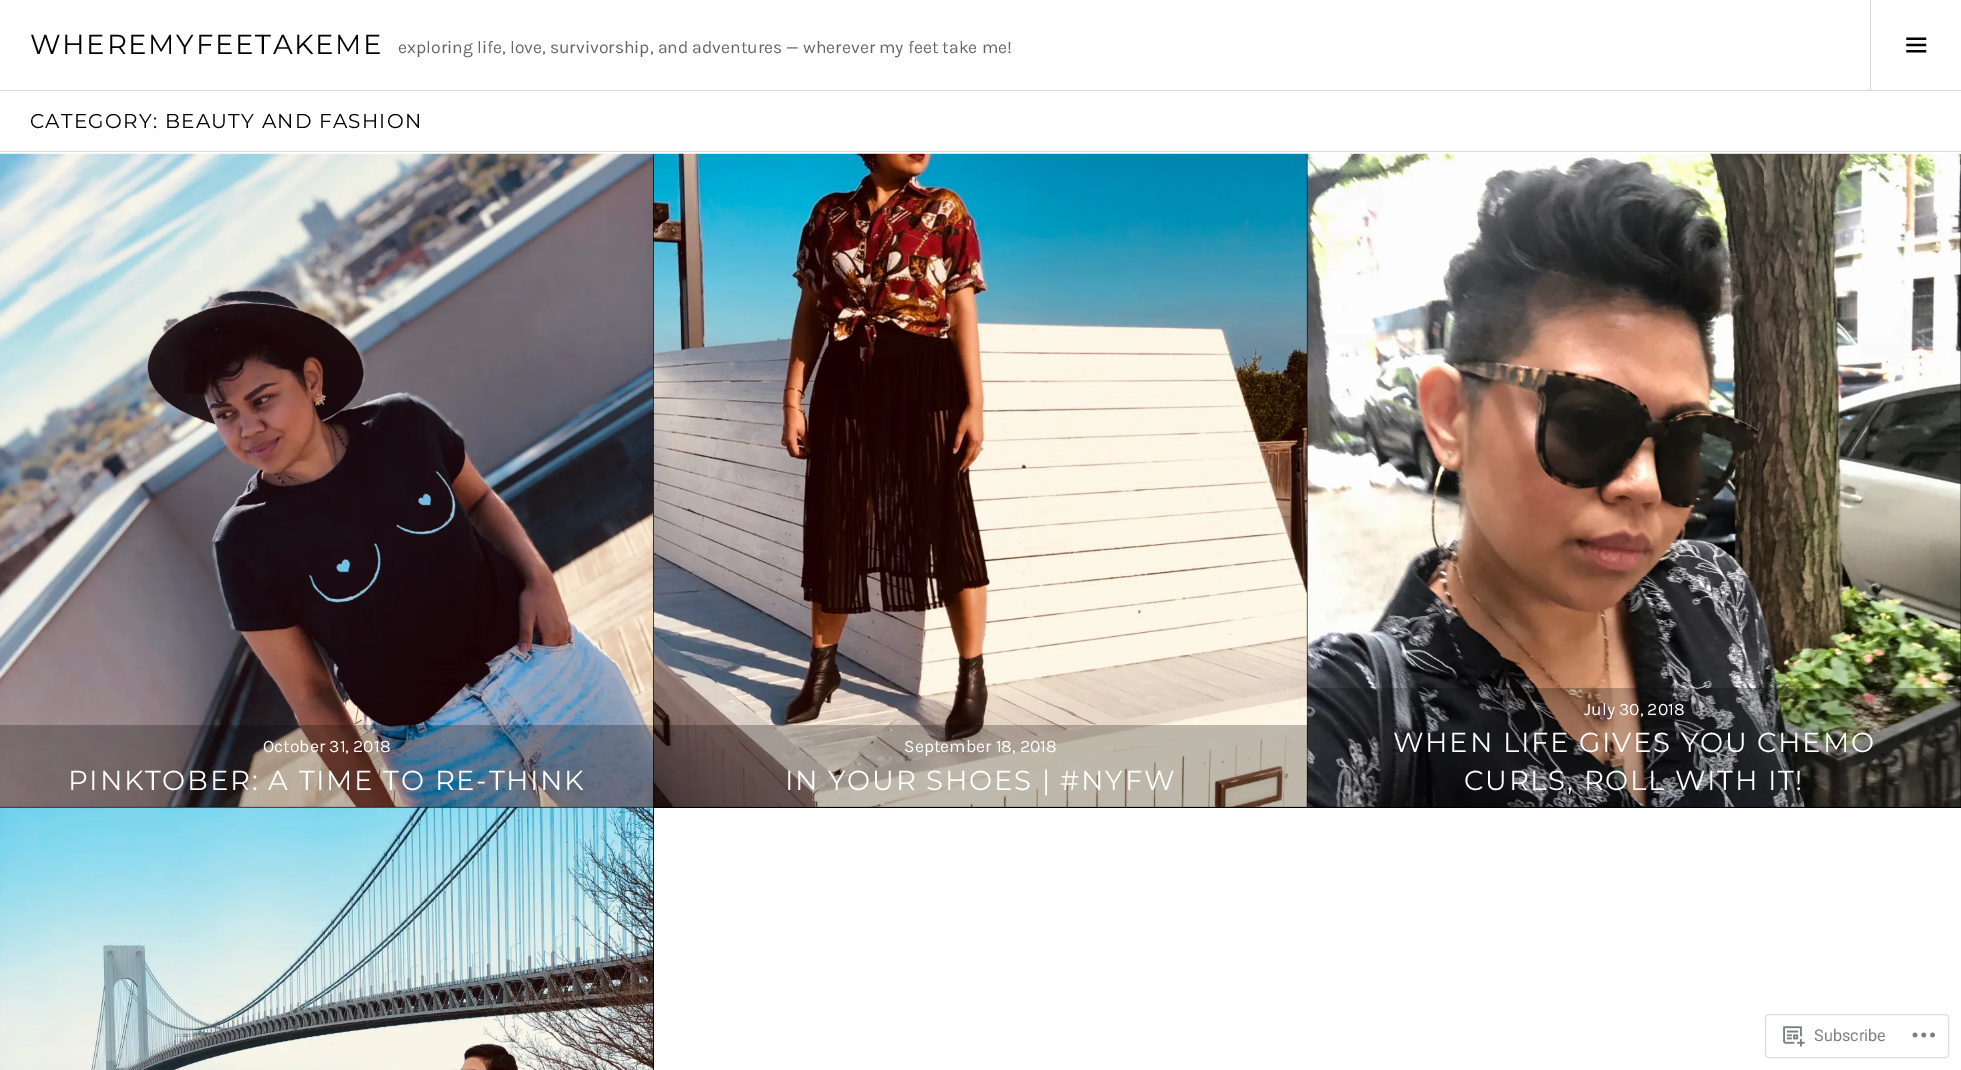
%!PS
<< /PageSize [1961 1070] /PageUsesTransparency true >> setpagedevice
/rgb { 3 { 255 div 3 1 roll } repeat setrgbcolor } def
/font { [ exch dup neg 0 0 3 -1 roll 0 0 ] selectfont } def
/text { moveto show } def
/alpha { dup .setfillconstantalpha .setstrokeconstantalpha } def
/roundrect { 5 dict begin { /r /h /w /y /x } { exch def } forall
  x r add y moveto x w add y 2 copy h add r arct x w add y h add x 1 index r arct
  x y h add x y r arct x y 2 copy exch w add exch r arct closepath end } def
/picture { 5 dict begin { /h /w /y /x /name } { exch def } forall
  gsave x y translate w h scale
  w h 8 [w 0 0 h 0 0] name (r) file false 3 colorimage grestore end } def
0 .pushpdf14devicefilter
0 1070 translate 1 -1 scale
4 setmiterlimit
255 255 255 rgb
0 0 1961 1070 rectfill
217 217 217 rgb
0 90 1961 1 rectfill
1870 0 1 90 rectfill
(img_01.rgb) 1906 37 21 16 picture
0 151 1961 1 rectfill
0 0 0 rgb
0 154 1961 654 rectfill
(img_02.rgb) 0 153 654 654 picture
(img_03.rgb) 653 153 654 654 picture
653 808 1 262 rectfill
(img_05.rgb) 0 807 654 263 picture
0.25 alpha
0 725 654 83 rectfill
1 alpha
(img_04.rgb) 1307 153 654 654 picture
0.25 alpha
654 725 654 82 rectfill
1308 688 653 119 rectfill
1 alpha
221 221 223 rgb
1765.5 1014.5 183 43 3.5 roundrect stroke
(img_06.rgb) 1783 1026 22 21 picture
(img_07.rgb) 1912 1032 23 6 picture
/Montserrat-Regular 27.5 font
0 0 0 rgb
30 54 moveto 1.75 0 (WHEREMYFEETAKEME) ashow
/Karla-Regular 17.5 font
102 102 102 rgb
(exploring life, love, survivorship, and adventures — wherever my feet take me!) 398 53 text
/Montserrat-Regular 20 font
0 0 0 rgb
30 128 moveto 1.25 0 (CATEGORY: BEAUTY AND FASHION) ashow
/Karla-Regular 17.5 font
255 255 255 rgb
(October 31, 2018) 263 752 text
/Montserrat-Regular 27.5 font
68 790 moveto 1.75 0 (PINKTOBER: A TIME TO RE-THINK) ashow
/Karla-Regular 17.5 font
(September 18, 2018) 904 752 text
/Montserrat-Regular 27.5 font
785 790 moveto 1.75 0 (IN YOUR SHOES | #NYFW) ashow
/Karla-Regular 17.5 font
(July 30, 2018) 1584 715 text
/Montserrat-Regular 27.5 font
1393 752 moveto 1.75 0 (WHEN LIFE GIVES YOU CHEMO) ashow
1464 790 moveto 1.75 0 (CURLS, ROLL WITH IT!) ashow
/Roboto-Regular 16.25 font
123 127 133 rgb
(Subscribe) 1814 1041 text
.poppdf14devicefilter showpage
